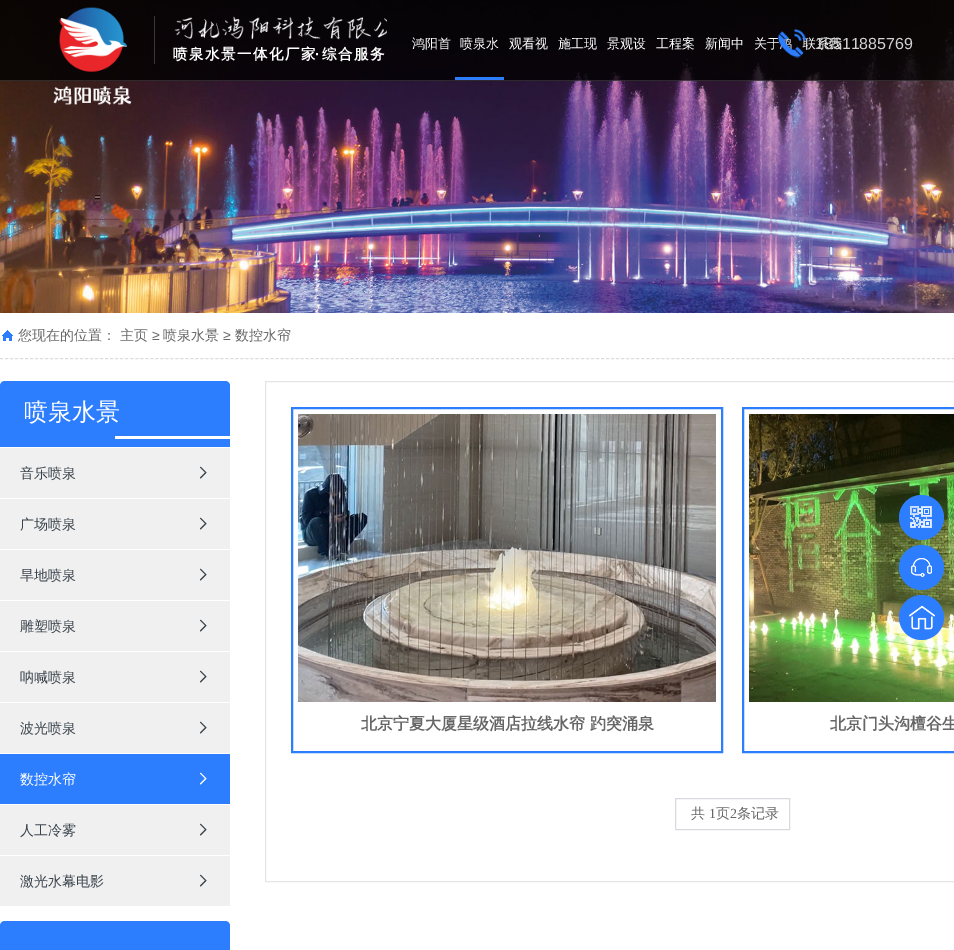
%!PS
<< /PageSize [954 950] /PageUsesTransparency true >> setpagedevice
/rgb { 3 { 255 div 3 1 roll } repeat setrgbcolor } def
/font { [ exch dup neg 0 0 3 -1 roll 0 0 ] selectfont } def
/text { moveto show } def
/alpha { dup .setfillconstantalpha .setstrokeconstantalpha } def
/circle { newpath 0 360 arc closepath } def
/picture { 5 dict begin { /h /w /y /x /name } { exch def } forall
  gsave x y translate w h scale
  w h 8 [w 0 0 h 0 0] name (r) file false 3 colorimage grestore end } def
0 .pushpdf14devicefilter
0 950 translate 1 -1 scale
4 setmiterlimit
255 255 255 rgb
0 0 954 950 rectfill
(img_01.rgb) 0 0 954 313 picture
0.8 alpha
0 0 0 rgb
0 0 954 81 rectfill
0.15 alpha
255 255 255 rgb
0 80 954 1 rectfill
1 alpha
(img_02.rgb) 53 7 79 98 picture
44 126 255 rgb
455 77 49 3 rectfill
59 54 56 rgb
154 16 1 48 rectfill
(img_04.rgb) 174 16 213 24 picture
(img_05.rgb) 2 330 11 11 picture
220 220 220 rgb
[3 2.01] 0 setdash
0 358.5 moveto 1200 0 rlineto stroke
44 126 255 rgb
5 381 moveto 220 0 rlineto 3 0 5 2 5 5 rcurveto 0 61 rlineto -230 0 rlineto 0 -61 rlineto 0 -3 2 -5 5 -5 rcurveto closepath fill
255 255 255 rgb
115 436 115 3 rectfill
240 240 240 rgb
0 448 230 50 rectfill
(img_06.rgb) 200 466 7 13 picture
0 499 230 50 rectfill
(img_06.rgb) 200 517 7 13 picture
0 550 230 50 rectfill
(img_06.rgb) 200 568 7 13 picture
0 601 230 50 rectfill
(img_06.rgb) 200 619 7 13 picture
0 652 230 50 rectfill
(img_06.rgb) 200 670 7 13 picture
0 703 230 50 rectfill
(img_06.rgb) 200 721 7 13 picture
44 126 255 rgb
0 754 230 50 rectfill
(img_07.rgb) 200 772 7 13 picture
240 240 240 rgb
0 805 230 50 rectfill
(img_06.rgb) 200 823 7 13 picture
0 856 230 50 rectfill
(img_06.rgb) 200 874 7 13 picture
44 126 255 rgb
5 921 moveto 220 0 rlineto 3 0 5 2 5 5 rcurveto 0 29 rlineto -230 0 rlineto 0 -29 rlineto 0 -3 2 -5 5 -5 rcurveto closepath fill
229 229 229 rgb
[] 0 setdash
265.5 381.5 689 500 rectstroke
44 126 255 rgb
2 setlinewidth
292 408 430 344 rectstroke
(img_08.rgb) 298 414 418 288 picture
743 408 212 344 rectstroke
(img_09.rgb) 749 414 205 288 picture
216 218 223 rgb
1 setlinewidth
675.5 798.5 114 31 rectstroke
44 126 255 rgb
921.5 517.5 22.5 circle fill
(img_10.rgb) 910 506 22 22 picture
921.5 567.5 22.5 circle fill
(img_11.rgb) 911 558 21 19 picture
921.5 617.5 22.5 circle fill
(img_12.rgb) 909 605 26 25 picture
/WenQuanYiZenHei-Medium 13 font
255 255 255 rgb
(鸿阳首) 412 48 text
(喷泉水) 460 48 text
(观看视) 509 48 text
(施工现) 558 48 text
(景观设) 607 48 text
(工程案) 656 48 text
(新闻中) 705 48 text
(关于鸿) 754 48 text
(联系我) 803 48 text
(img_03.rgb) 778 29 29 29 picture
/LiberationSans-Regular 16 font
210 209 210 rgb
(18511885769) 815 49 text
/WenQuanYiZenHei-Bold 14.5 font
255 255 255 rgb
173 59 moveto 1.5 0 (喷泉水景一体化厂家) ashow
/LiberationSans-Bold 14.5 font
315 59 moveto 1.5 0 (·) ashow
/WenQuanYiZenHei-Bold 14.5 font
322 59 moveto 1.5 0 (综合服务) ashow
/WenQuanYiZenHei-Medium 14 font
102 102 102 rgb
(您现在的位置：) 18 340 text
(主页) 120 340 text
/LiberationSans-Regular 14 font
(≥) 152 340 text
/WenQuanYiZenHei-Medium 14 font
(喷泉水景) 163 340 text
/LiberationSans-Regular 14 font
(≥) 223 340 text
/WenQuanYiZenHei-Medium 14 font
(数控水帘) 235 340 text
/WenQuanYiZenHei-Medium 24 font
255 255 255 rgb
(喷泉水景) 24 420 text
/WenQuanYiZenHei-Medium 14 font
58 67 76 rgb
(音乐喷泉) 20 478 text
(广场喷泉) 20 529 text
(旱地喷泉) 20 580 text
(雕塑喷泉) 20 631 text
(呐喊喷泉) 20 682 text
(波光喷泉) 20 733 text
255 255 255 rgb
(数控水帘) 20 784 text
58 67 76 rgb
(人工冷雾) 20 835 text
(激光水幕电影) 20 886 text
/WenQuanYiZenHei-Bold 16 font
102 102 102 rgb
(北京宁夏大厦星级酒店拉线水帘 趵突涌泉) 361 729 text
(北京门头沟檀谷生) 830 729 text
/WenQuanYiZenHei-Medium 14 font
(共) 691 818 text
/LiberationSerif-Regular 14 font
(1) 709 818 text
/WenQuanYiZenHei-Medium 14 font
(页) 716 818 text
/LiberationSerif-Regular 14 font
(2) 730 818 text
/WenQuanYiZenHei-Medium 14 font
(条记录) 737 818 text
.poppdf14devicefilter showpage
